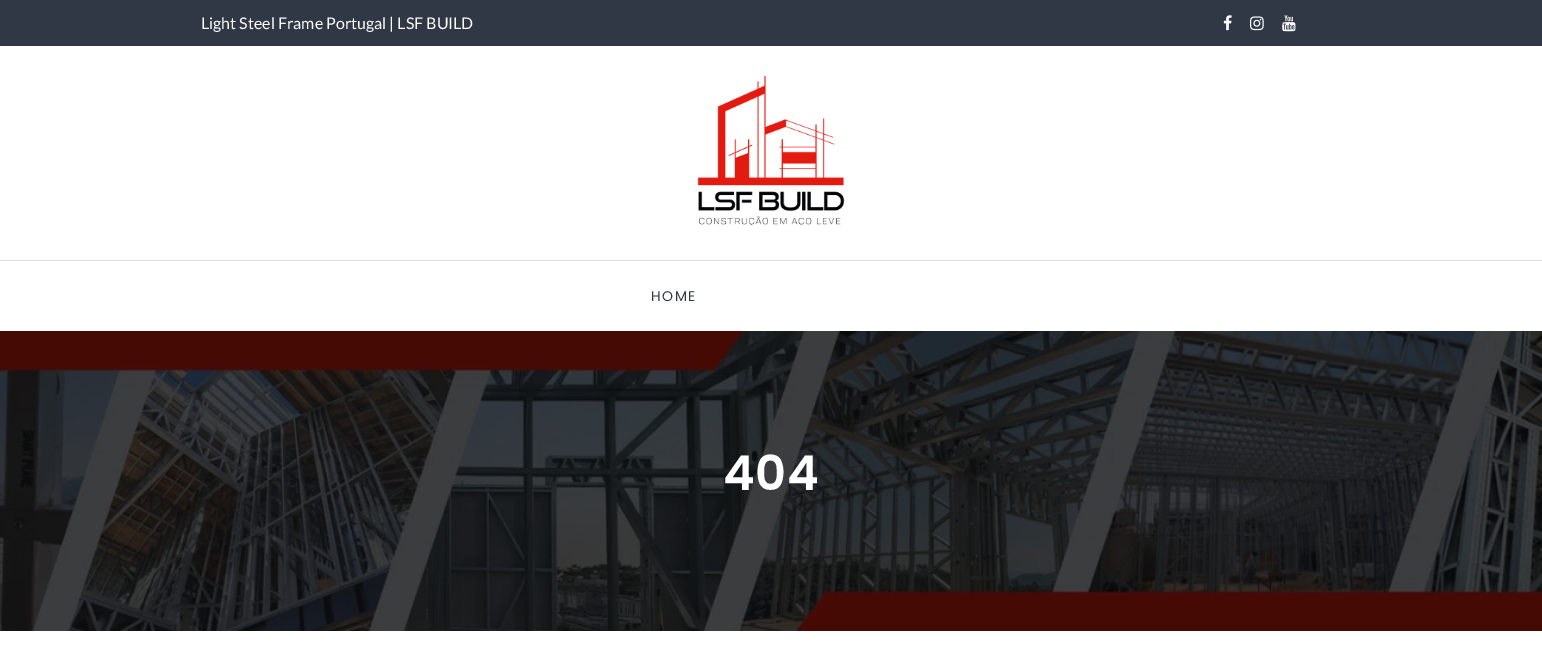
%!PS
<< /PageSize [1542 652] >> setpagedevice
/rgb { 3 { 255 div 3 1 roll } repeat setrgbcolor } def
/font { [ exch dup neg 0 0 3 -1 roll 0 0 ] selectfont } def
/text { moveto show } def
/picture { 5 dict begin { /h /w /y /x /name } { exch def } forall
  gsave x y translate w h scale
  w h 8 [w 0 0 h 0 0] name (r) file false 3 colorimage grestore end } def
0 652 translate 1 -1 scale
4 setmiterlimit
255 255 255 rgb
0 0 1542 652 rectfill
48 55 69 rgb
0 0 1542 46 rectfill
(img_01.rgb) 1223 15 9 16 picture
(img_02.rgb) 1250 16 14 15 picture
(img_03.rgb) 1282 15 14 17 picture
(img_04.rgb) 697 76 148 150 picture
221 221 221 rgb
0 260 1542 1 rectfill
(img_05.rgb) 0 331 1542 300 picture
/Lato-Regular 16 font
255 255 255 rgb
(Light Steel Frame Portugal | LSF BUILD) 201 29 text
/Poppins-Regular 14 font
48 55 69 rgb
651 301 moveto 1.5 0 (HOME) ashow
/Poppins-SemiBold 48 font
255 255 255 rgb
723 490 moveto 0.5 0 (404) ashow
showpage
